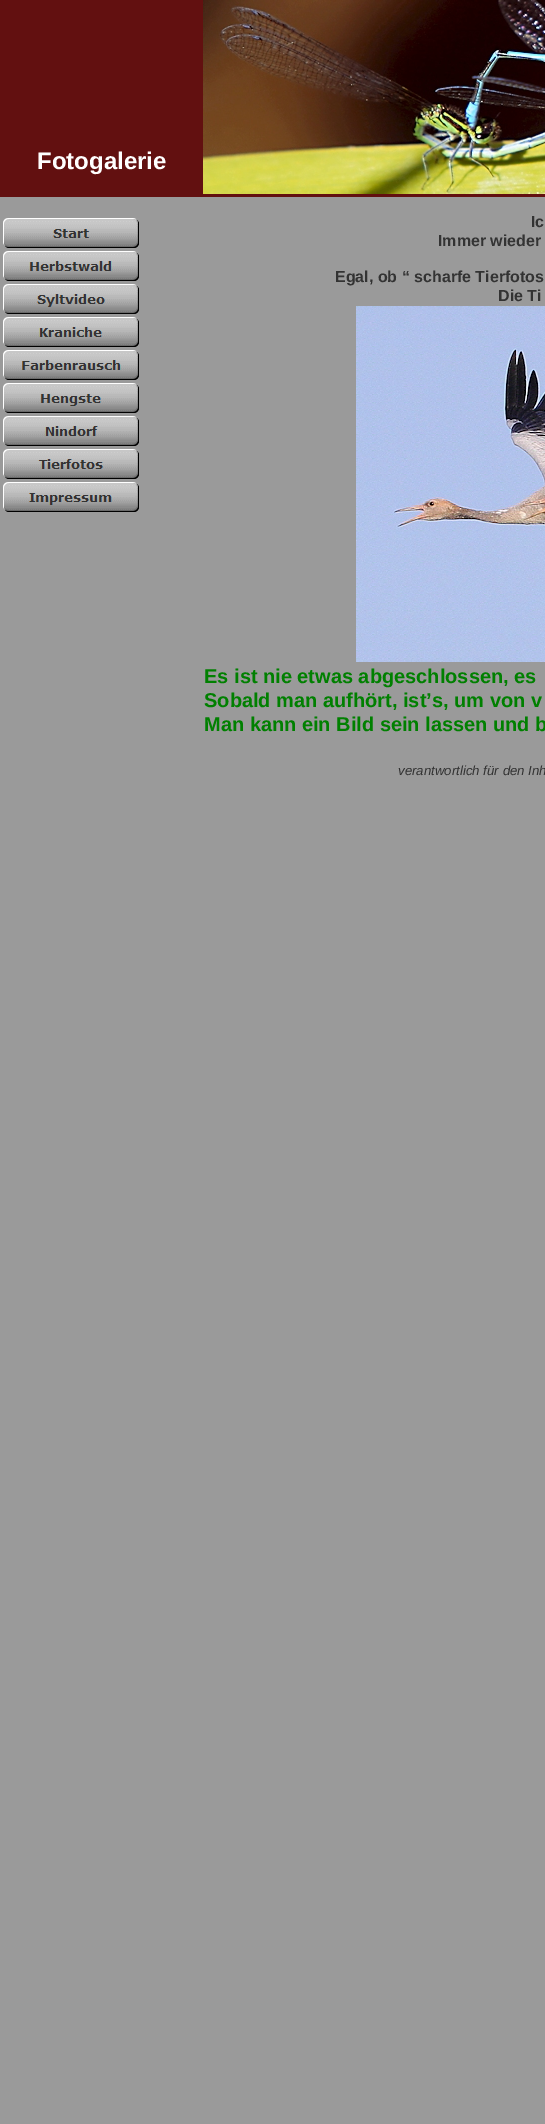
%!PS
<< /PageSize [545 2124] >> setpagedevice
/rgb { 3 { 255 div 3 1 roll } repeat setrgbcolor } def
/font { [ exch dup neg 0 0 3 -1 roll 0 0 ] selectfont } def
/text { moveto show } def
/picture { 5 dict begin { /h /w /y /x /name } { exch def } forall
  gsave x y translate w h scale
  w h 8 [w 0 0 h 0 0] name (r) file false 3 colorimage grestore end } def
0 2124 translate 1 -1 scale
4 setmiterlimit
154 154 154 rgb
0 0 545 2124 rectfill
98 16 16 rgb
0 0 545 197 rectfill
(img_01.rgb) 203 0 342 194 picture
(img_02.rgb) 3 218 136 30 picture
(img_03.rgb) 3 251 136 30 picture
(img_04.rgb) 3 284 136 30 picture
(img_05.rgb) 3 317 136 30 picture
(img_06.rgb) 3 350 136 30 picture
(img_07.rgb) 3 383 136 30 picture
(img_08.rgb) 3 416 136 30 picture
(img_09.rgb) 3 449 136 30 picture
(img_10.rgb) 3 482 136 30 picture
(img_11.rgb) 356 306 189 356 picture
/LiberationSans-Bold 24 font
255 255 255 rgb
(Fotogalerie) 37 169 text
/LiberationSans-Bold 16 font
51 51 51 rgb
(Ic) 531 227 text
(Immer wieder) 438 246 text
(Egal, ob “ scharfe Tierfotos) 335 282 text
(Die Ti) 498 301 text
/LiberationSans-Bold 20 font
0 128 0 rgb
(Es ist nie etwas abgeschlossen, es) 204 683 text
(Sobald man aufhört, ist’s, um von v) 204 707 text
(Man kann ein Bild sein lassen und b) 204 731 text
/LiberationSans-Italic 13.25 font
51 51 51 rgb
(verantwortlich für den Inh) 398 775 text
showpage
